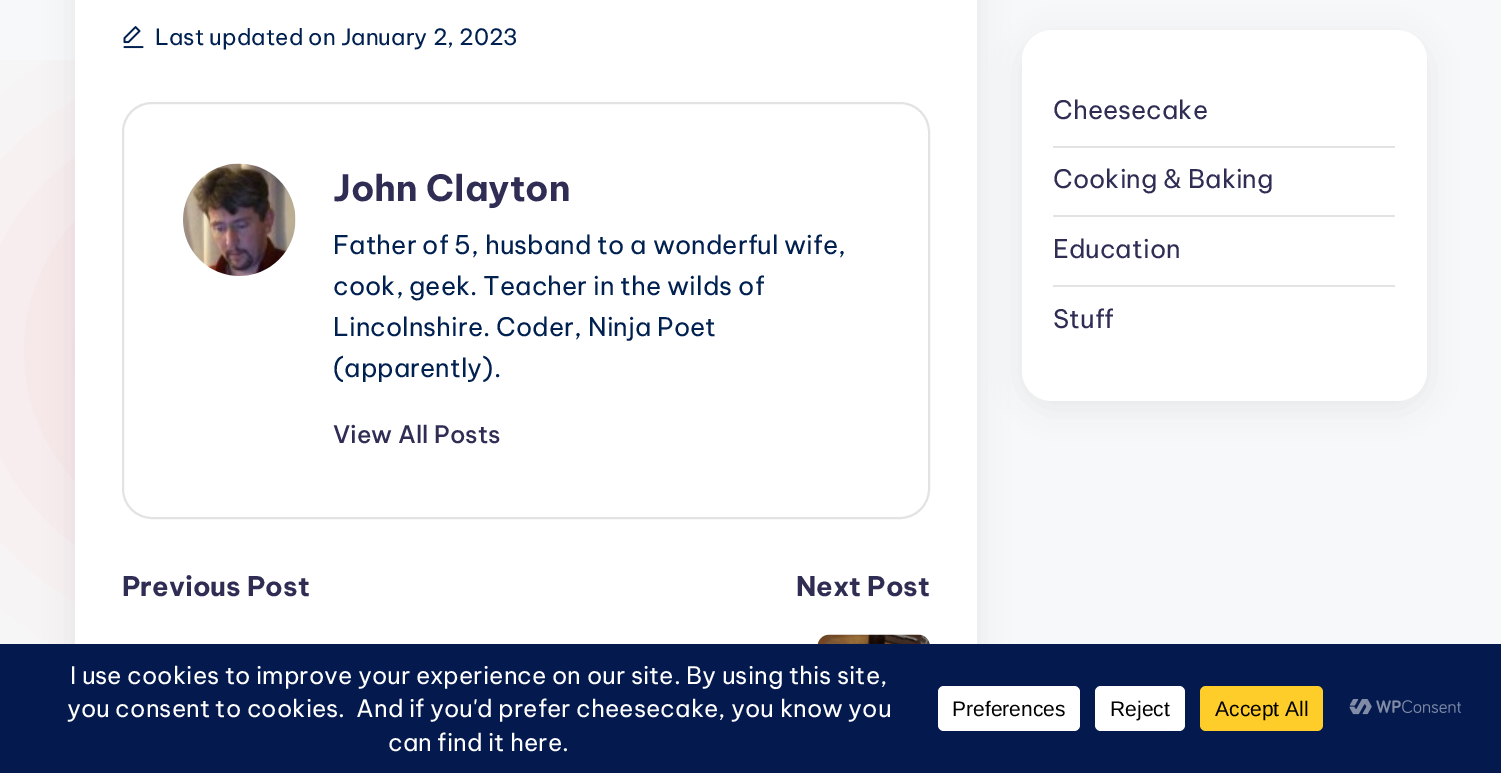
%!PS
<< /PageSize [1501 773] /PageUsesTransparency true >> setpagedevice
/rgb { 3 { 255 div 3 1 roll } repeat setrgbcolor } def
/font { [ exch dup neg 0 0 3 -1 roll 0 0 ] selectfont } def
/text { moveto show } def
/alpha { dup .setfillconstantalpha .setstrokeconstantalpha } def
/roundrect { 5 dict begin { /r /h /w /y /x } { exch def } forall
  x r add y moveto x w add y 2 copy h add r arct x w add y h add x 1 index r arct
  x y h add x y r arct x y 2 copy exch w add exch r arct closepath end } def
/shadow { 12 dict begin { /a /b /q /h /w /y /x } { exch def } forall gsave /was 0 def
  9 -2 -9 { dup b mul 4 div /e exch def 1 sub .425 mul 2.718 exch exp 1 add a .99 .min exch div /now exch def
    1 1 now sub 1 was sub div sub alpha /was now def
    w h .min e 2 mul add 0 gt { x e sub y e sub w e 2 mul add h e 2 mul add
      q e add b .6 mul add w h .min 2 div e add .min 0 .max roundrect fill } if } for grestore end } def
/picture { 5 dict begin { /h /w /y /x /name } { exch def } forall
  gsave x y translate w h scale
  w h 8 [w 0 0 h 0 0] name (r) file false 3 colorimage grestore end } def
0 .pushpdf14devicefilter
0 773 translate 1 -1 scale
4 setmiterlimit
247 248 249 rgb
0 0 1501 773 rectfill
gsave
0 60 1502 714 rectclip
247 227 229 rgb
0 135 432 432 216 96 1 shadow
grestore
69 67 96 rgb
75 -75 902 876 30 15 0.1 shadow
255 255 255 rgb
75 0 902 644 rectfill
(img_01.rgb) 123 26 21 23 picture
227 227 227 rgb
2 setlinewidth
123 103 806 415 29 roundrect stroke
(img_02.rgb) 183 163 113 113 picture
(img_03.rgb) 817 634 113 10 picture
69 67 96 rgb
1022 38 405 370 30 15 0.1 shadow
255 255 255 rgb
1022 30 405 371 30 roundrect fill
227 227 227 rgb
1053 146 342 2 rectfill
1053 215 342 2 rectfill
1053 285 342 2 rectfill
4 25 78 rgb
0 644 1501 129 rectfill
255 255 255 rgb
938 686 142 45 6 roundrect fill
1095 686 90 45 6 roundrect fill
255 205 42 rgb
1200 686 123 45 6 roundrect fill
(img_04.rgb) 1349 699 112 16 picture
/BeVietnamPro-Regular 22.4 font
0 32 80 rgb
(Last updated on January 2, 2023) 155 45 text
/BeVietnamPro-Bold 36 font
48 45 85 rgb
(John Clayton) 333 201 text
/BeVietnamPro-Regular 25.5 font
0 32 80 rgb
(Father of 5, husband to a wonderful wife,) 333 254 text
(cook, geek. Teacher in the wilds of) 333 295 text
(Lincolnshire. Coder, Ninja Poet) 333 336 text
(\(apparently\).) 333 377 text
/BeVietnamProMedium-Medium 24 font
48 45 85 rgb
(View All Posts) 333 443 text
/BeVietnamPro-Bold 27 font
(Previous Post) 122 596 text
(Next Post) 796 596 text
/BeVietnamPro-Regular 25.5 font
(Cheesecake) 1053 119 text
(Cooking & Baking) 1053 188 text
(Education) 1053 258 text
(Stuff) 1053 328 text
/BeVietnamPro-Regular 24 font
255 255 255 rgb
(I use cookies to improve your experience on our site. By using this site,) 70 684 text
(you consent to cookies.  And if you'd prefer cheesecake, you know you) 67 717 text
(can find it here.) 388 751 text
/LiberationSans-Regular 21 font
0 0 0 rgb
(Preferences) 952 716 text
(Reject) 1110 716 text
(Accept All) 1215 716 text
.poppdf14devicefilter showpage
